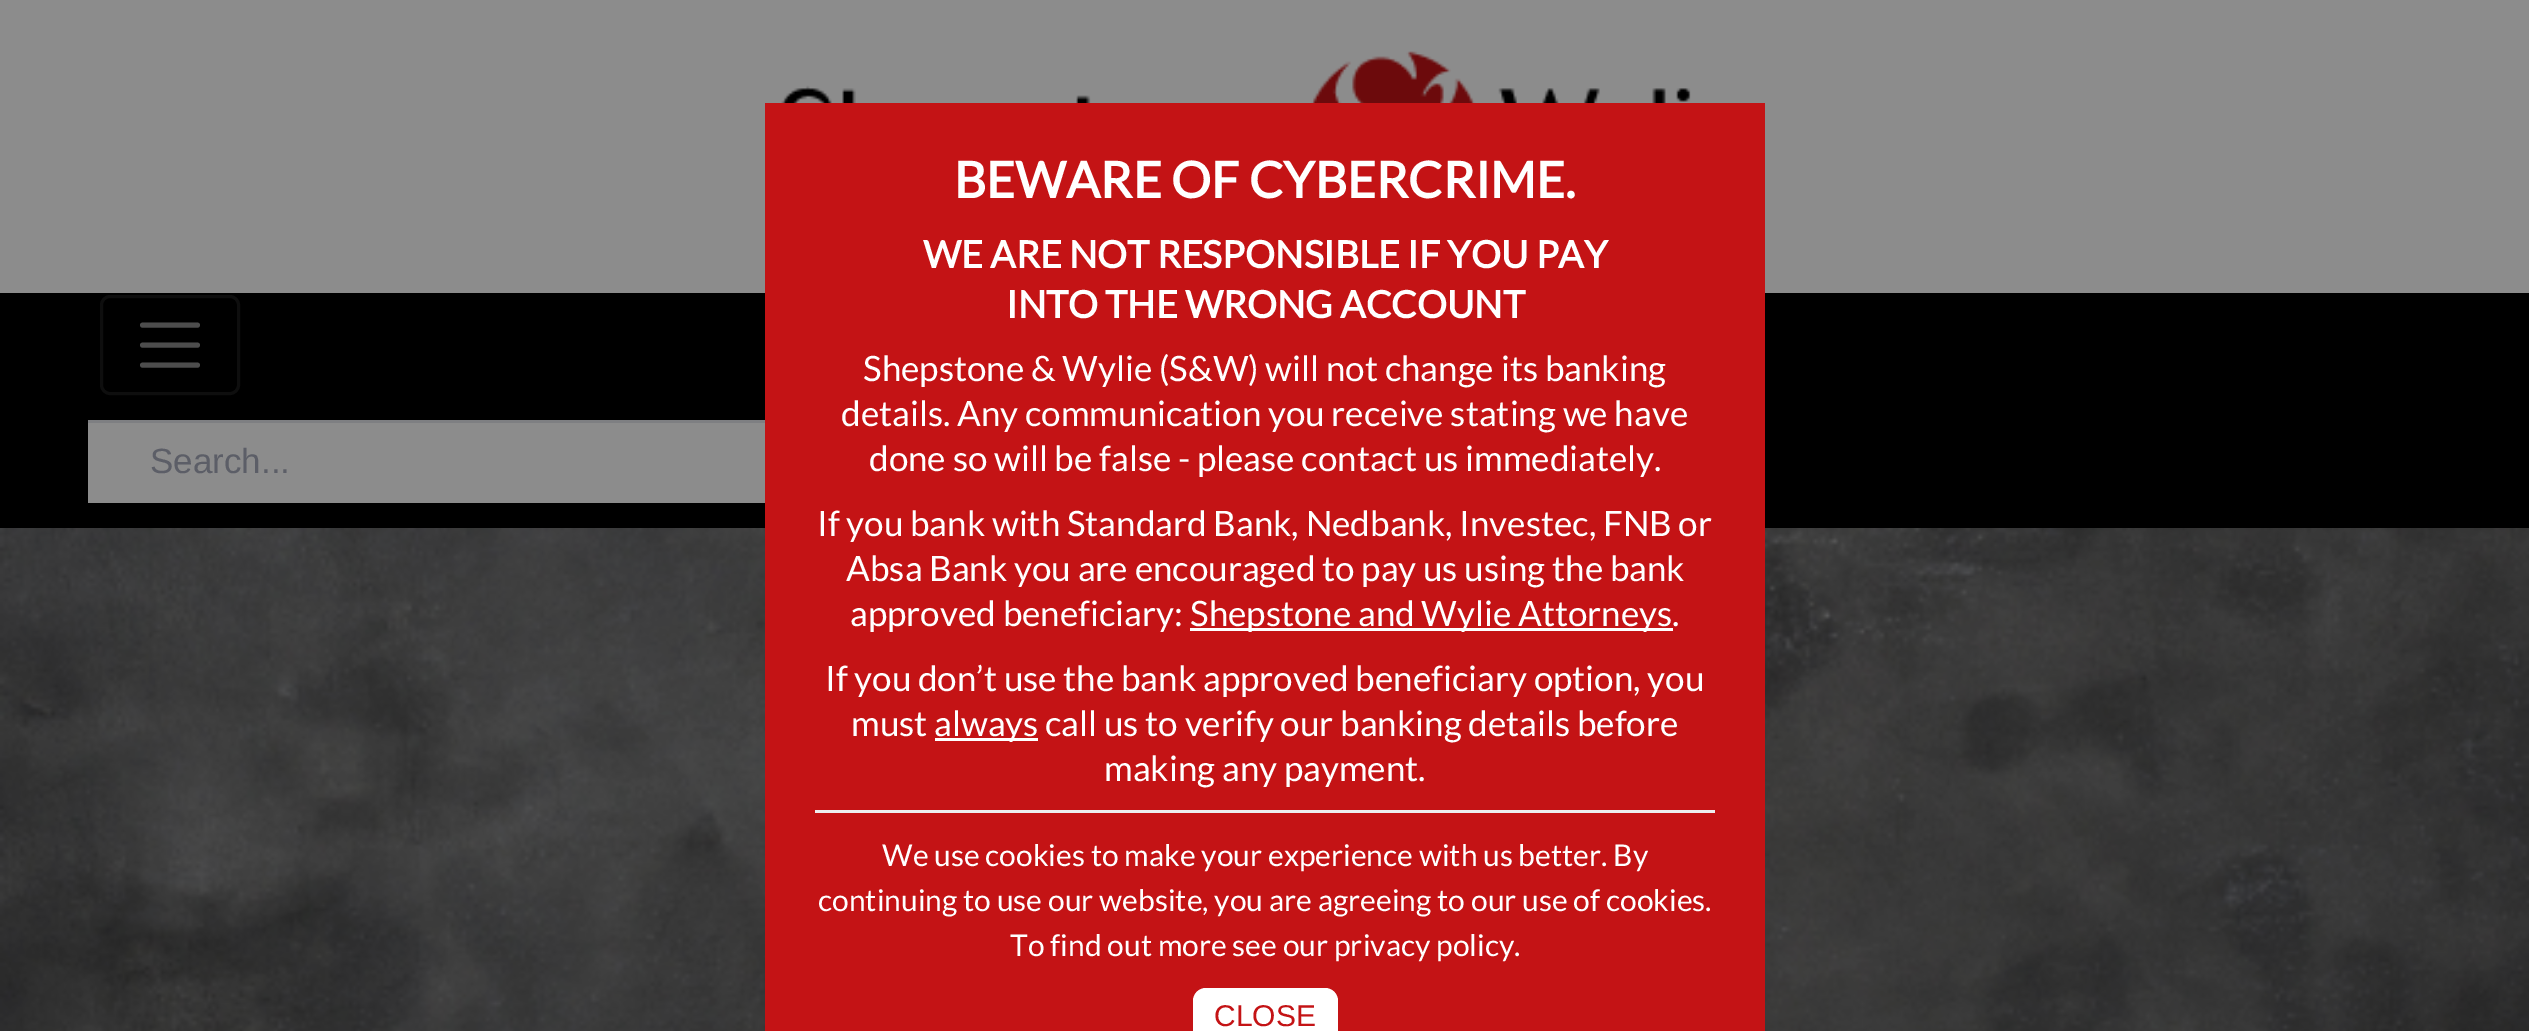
%!PS
<< /PageSize [2529 1031] >> setpagedevice
/rgb { 3 { 255 div 3 1 roll } repeat setrgbcolor } def
/font { [ exch dup neg 0 0 3 -1 roll 0 0 ] selectfont } def
/text { moveto show } def
/roundrect { 5 dict begin { /r /h /w /y /x } { exch def } forall
  x r add y moveto x w add y 2 copy h add r arct x w add y h add x 1 index r arct
  x y h add x y r arct x y 2 copy exch w add exch r arct closepath end } def
/picture { 5 dict begin { /h /w /y /x /name } { exch def } forall
  gsave x y translate w h scale
  w h 8 [w 0 0 h 0 0] name (r) file false 3 colorimage grestore end } def
0 1031 translate 1 -1 scale
4 setmiterlimit
255 255 255 rgb
0 0 2529 1031 rectfill
0 0 0 rgb
0 293 2529 235 rectfill
140 140 140 rgb
0 0 2529 293 rectfill
(img_01.rgb) 781 51 910 52 picture
14 14 14 rgb
3 setlinewidth
101.5 296.5 137 97 8.5 roundrect stroke
77 77 77 rgb
5 setlinewidth
1 setlinecap
142.5 325 moveto 55 0 rlineto 142.5 345 moveto 55 0 rlineto 142.5 365 moveto 55 0 rlineto stroke
139 139 139 rgb
88 500 moveto 0 3 rlineto 875 0 rlineto 0 -80 rlineto -1 0 rlineto 0 77 rlineto closepath fill
140 140 140 rgb
88 423 677 77 rectfill
126 127 130 rgb
88 420 677 3 rectfill
(img_02.rgb) 0 528 2529 503 picture
196 19 21 rgb
765 103 1000 928 rectfill
255 255 255 rgb
1190 628 483 3 rectfill
935 738 103 3 rectfill
238 238 238 rgb
815 810 900 3 rectfill
255 255 255 rgb
1193 988 145 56 13 roundrect fill
/LiberationSans-Regular 35 font
92 94 103 rgb
(Search...) 150 473 text
/Lato-Bold 50 font
255 255 255 rgb
(BEWARE OF CYBERCRIME.) 954 198 text
/Lato-Bold 37.5 font
(WE ARE NOT RESPONSIBLE IF YOU PAY) 923 268 text
(INTO THE WRONG ACCOUNT) 1006 318 text
/Lato-Regular 35 font
(Shepstone & Wylie \(S&W\) will not change its banking) 863 381 text
(details. Any communication you receive stating we have) 841 426 text
(done so will be false - please contact us immediately.) 869 471 text
(If you bank with Standard Bank, Nedbank, Investec, FNB or) 817 536 text
(Absa Bank you are encouraged to pay us using the bank) 846 581 text
(approved beneficiary:) 850 626 text
(Shepstone and Wylie Attorneys.) 1190 626 text
(If you don’t use the bank approved beneficiary option, you) 825 691 text
(must) 851 736 text
(always call us to verify our banking details before) 934 736 text
(making any payment.) 1104 781 text
/Lato-Regular 30 font
(We use cookies to make your experience with us better. By) 882 866 text
(continuing to use our website, you are agreeing to our use of cookies.) 818 911 text
(To find out more see our privacy policy.) 1010 956 text
/LiberationSans-Regular 30 font
196 19 21 rgb
(CLOSE) 1214 1026 text
showpage
